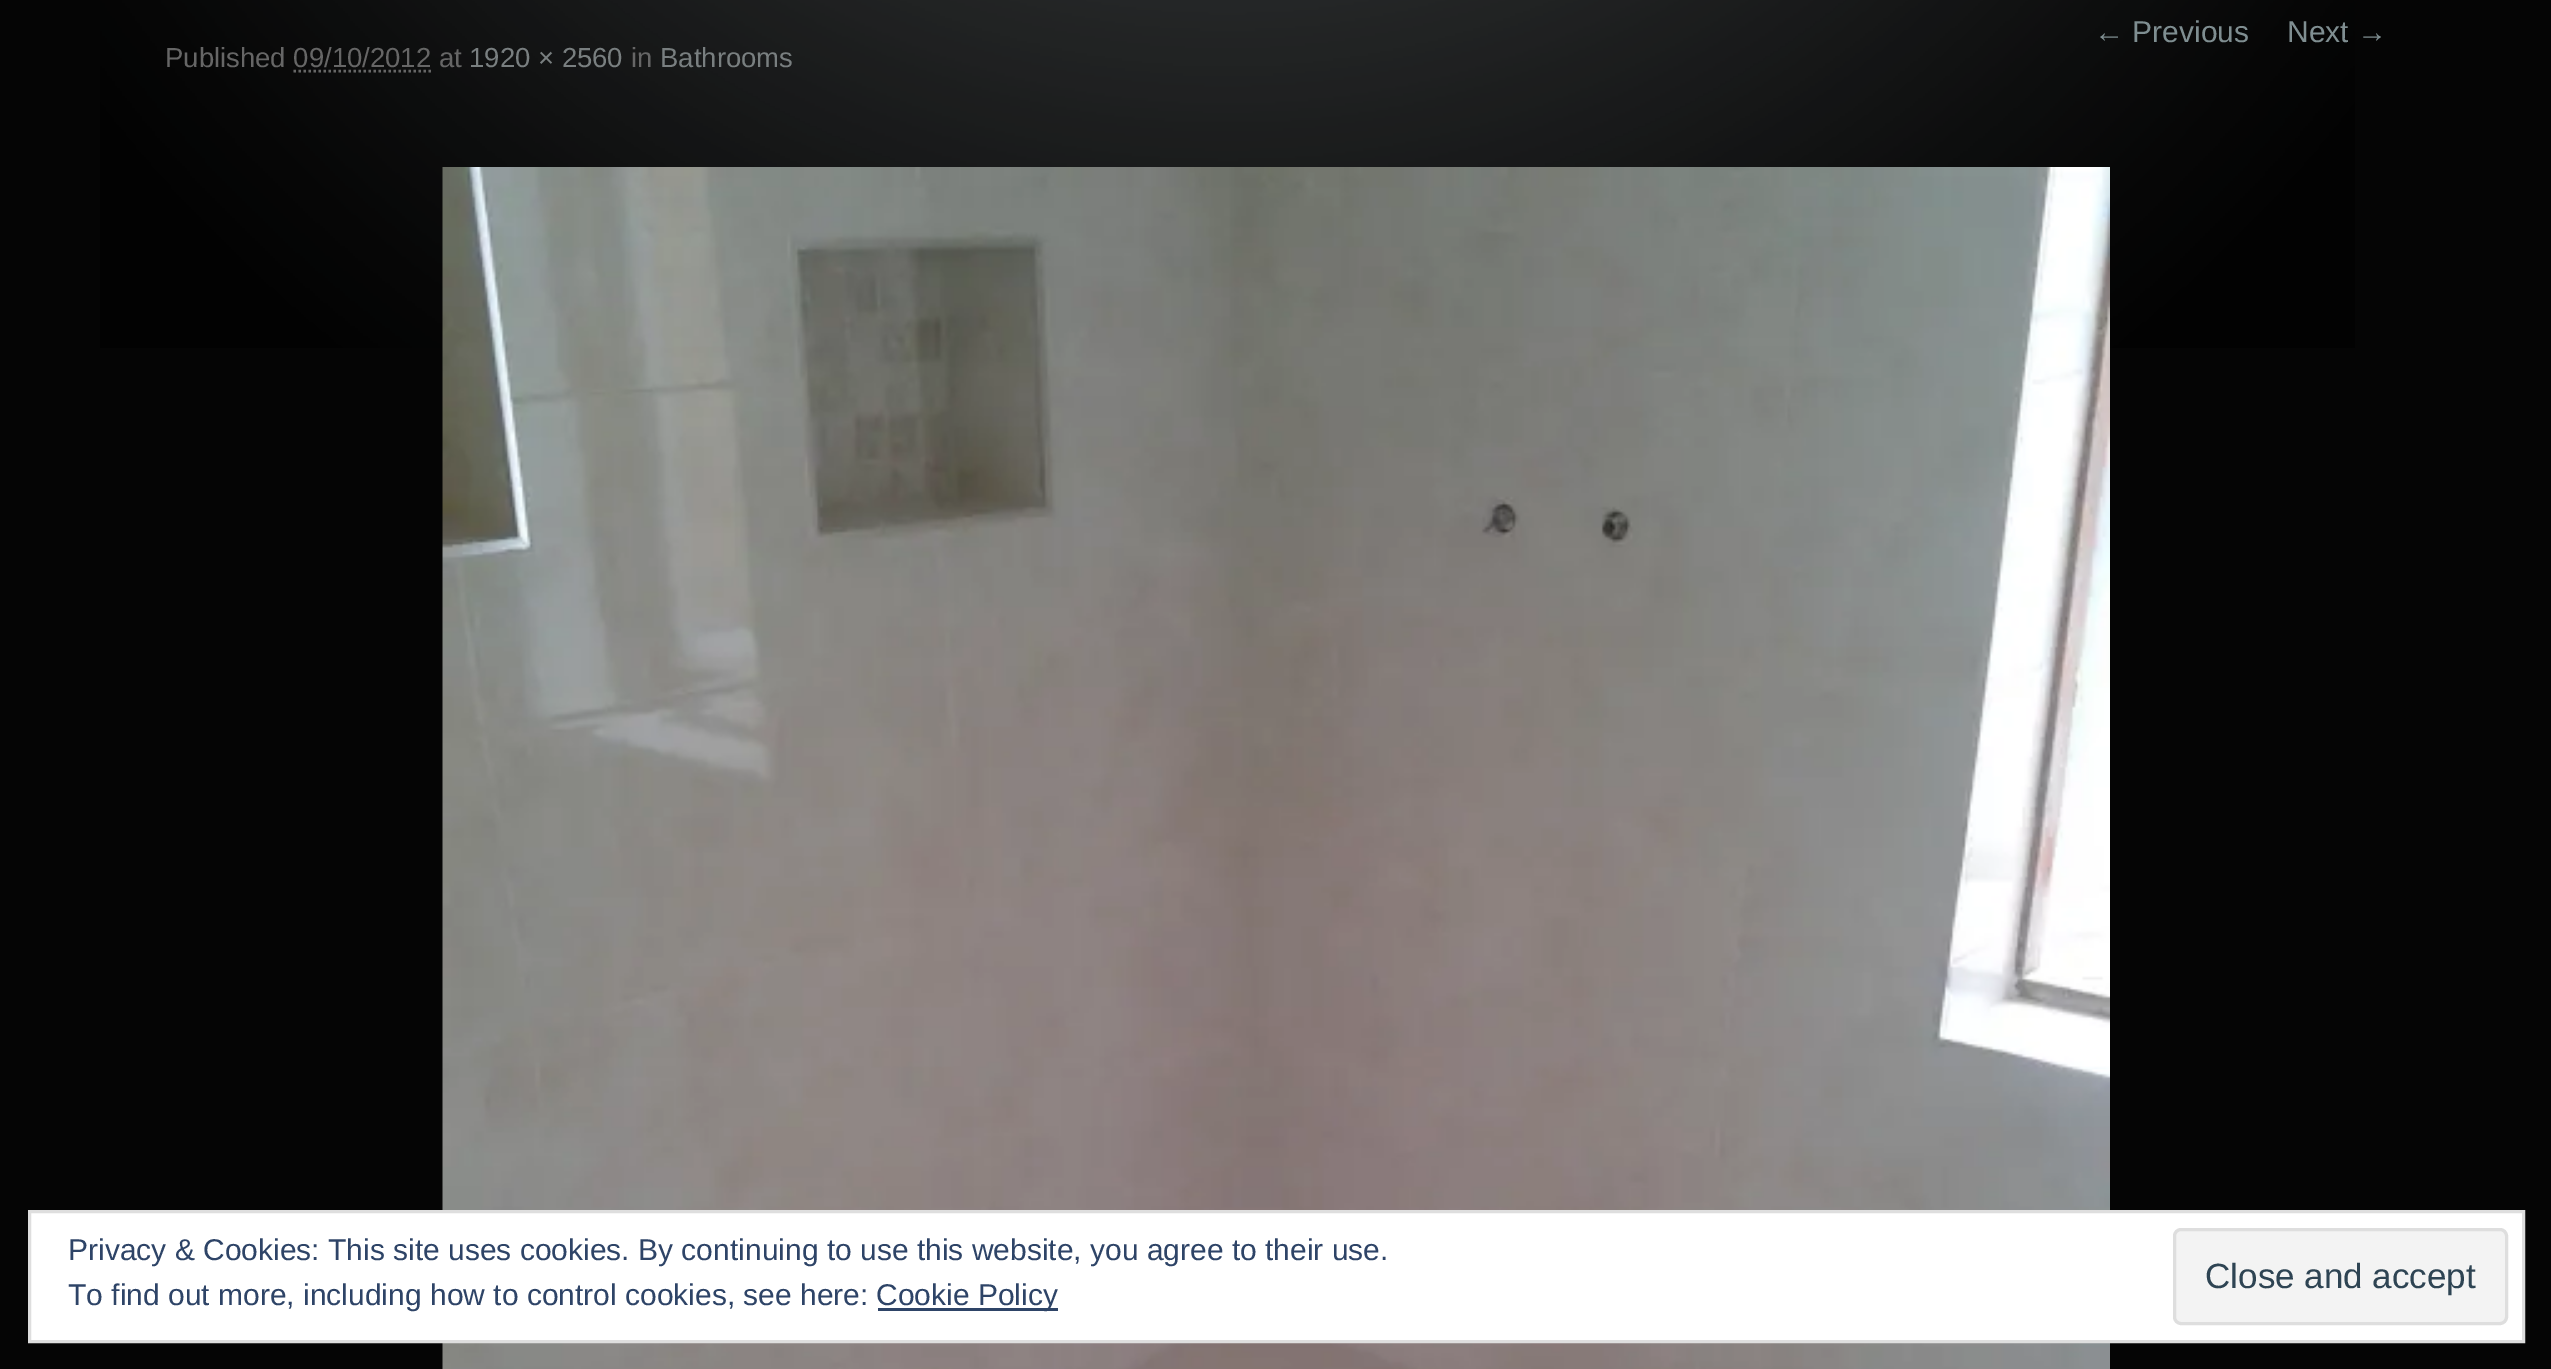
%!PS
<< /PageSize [2551 1369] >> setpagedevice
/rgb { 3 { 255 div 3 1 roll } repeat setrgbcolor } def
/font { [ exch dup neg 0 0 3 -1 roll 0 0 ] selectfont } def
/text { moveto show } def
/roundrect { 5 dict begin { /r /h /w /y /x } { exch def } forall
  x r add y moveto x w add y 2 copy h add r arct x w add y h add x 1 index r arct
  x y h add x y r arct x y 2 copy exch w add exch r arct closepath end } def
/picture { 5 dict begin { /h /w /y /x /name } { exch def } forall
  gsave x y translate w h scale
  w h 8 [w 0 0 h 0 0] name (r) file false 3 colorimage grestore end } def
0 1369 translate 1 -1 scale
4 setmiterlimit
5 5 5 rgb
0 0 2551 1369 rectfill
(img_01.rgb) 100 0 2255 348 picture
102 102 102 rgb
2.5 setlinewidth
[2.5 2.5] 0 setdash
293.5 71 moveto 137.5 0 rlineto stroke
(img_02.rgb) 442 167 1668 1202 picture
255 255 255 rgb
29.5 1211.5 moveto 2494 0 rlineto 0 130 rlineto -2494 0 rlineto closepath gsave fill grestore
222 222 222 rgb
3 setlinewidth
[] 0 setdash
stroke
46 68 103 rgb
878 1308 180 3 rectfill
243 243 243 rgb
2174.5 1229.5 332 94 6.5 roundrect gsave fill grestore
222 222 222 rgb
stroke
/LiberationSans-Regular 30 font
127 142 145 rgb
(← Previous) 2094 42 text
(Next →) 2287 42 text
/LiberationSans-Regular 27.5 font
102 102 102 rgb
(Published 09/10/2012 at) 165 67 text
121 127 128 rgb
(1920 × 2560) 469 67 text
102 102 102 rgb
(in) 631 67 text
121 127 128 rgb
(Bathrooms) 660 67 text
/LiberationSans-Regular 30 font
46 68 103 rgb
(Privacy & Cookies: This site uses cookies. By continuing to use this website, you agree to their use.) 68 1260 text
(To find out more, including how to control cookies, see here:) 68 1305 text
(Cookie Policy) 876 1305 text
/LiberationSans-Regular 35 font
46 68 83 rgb
(Close and accept) 2205 1288 text
showpage
